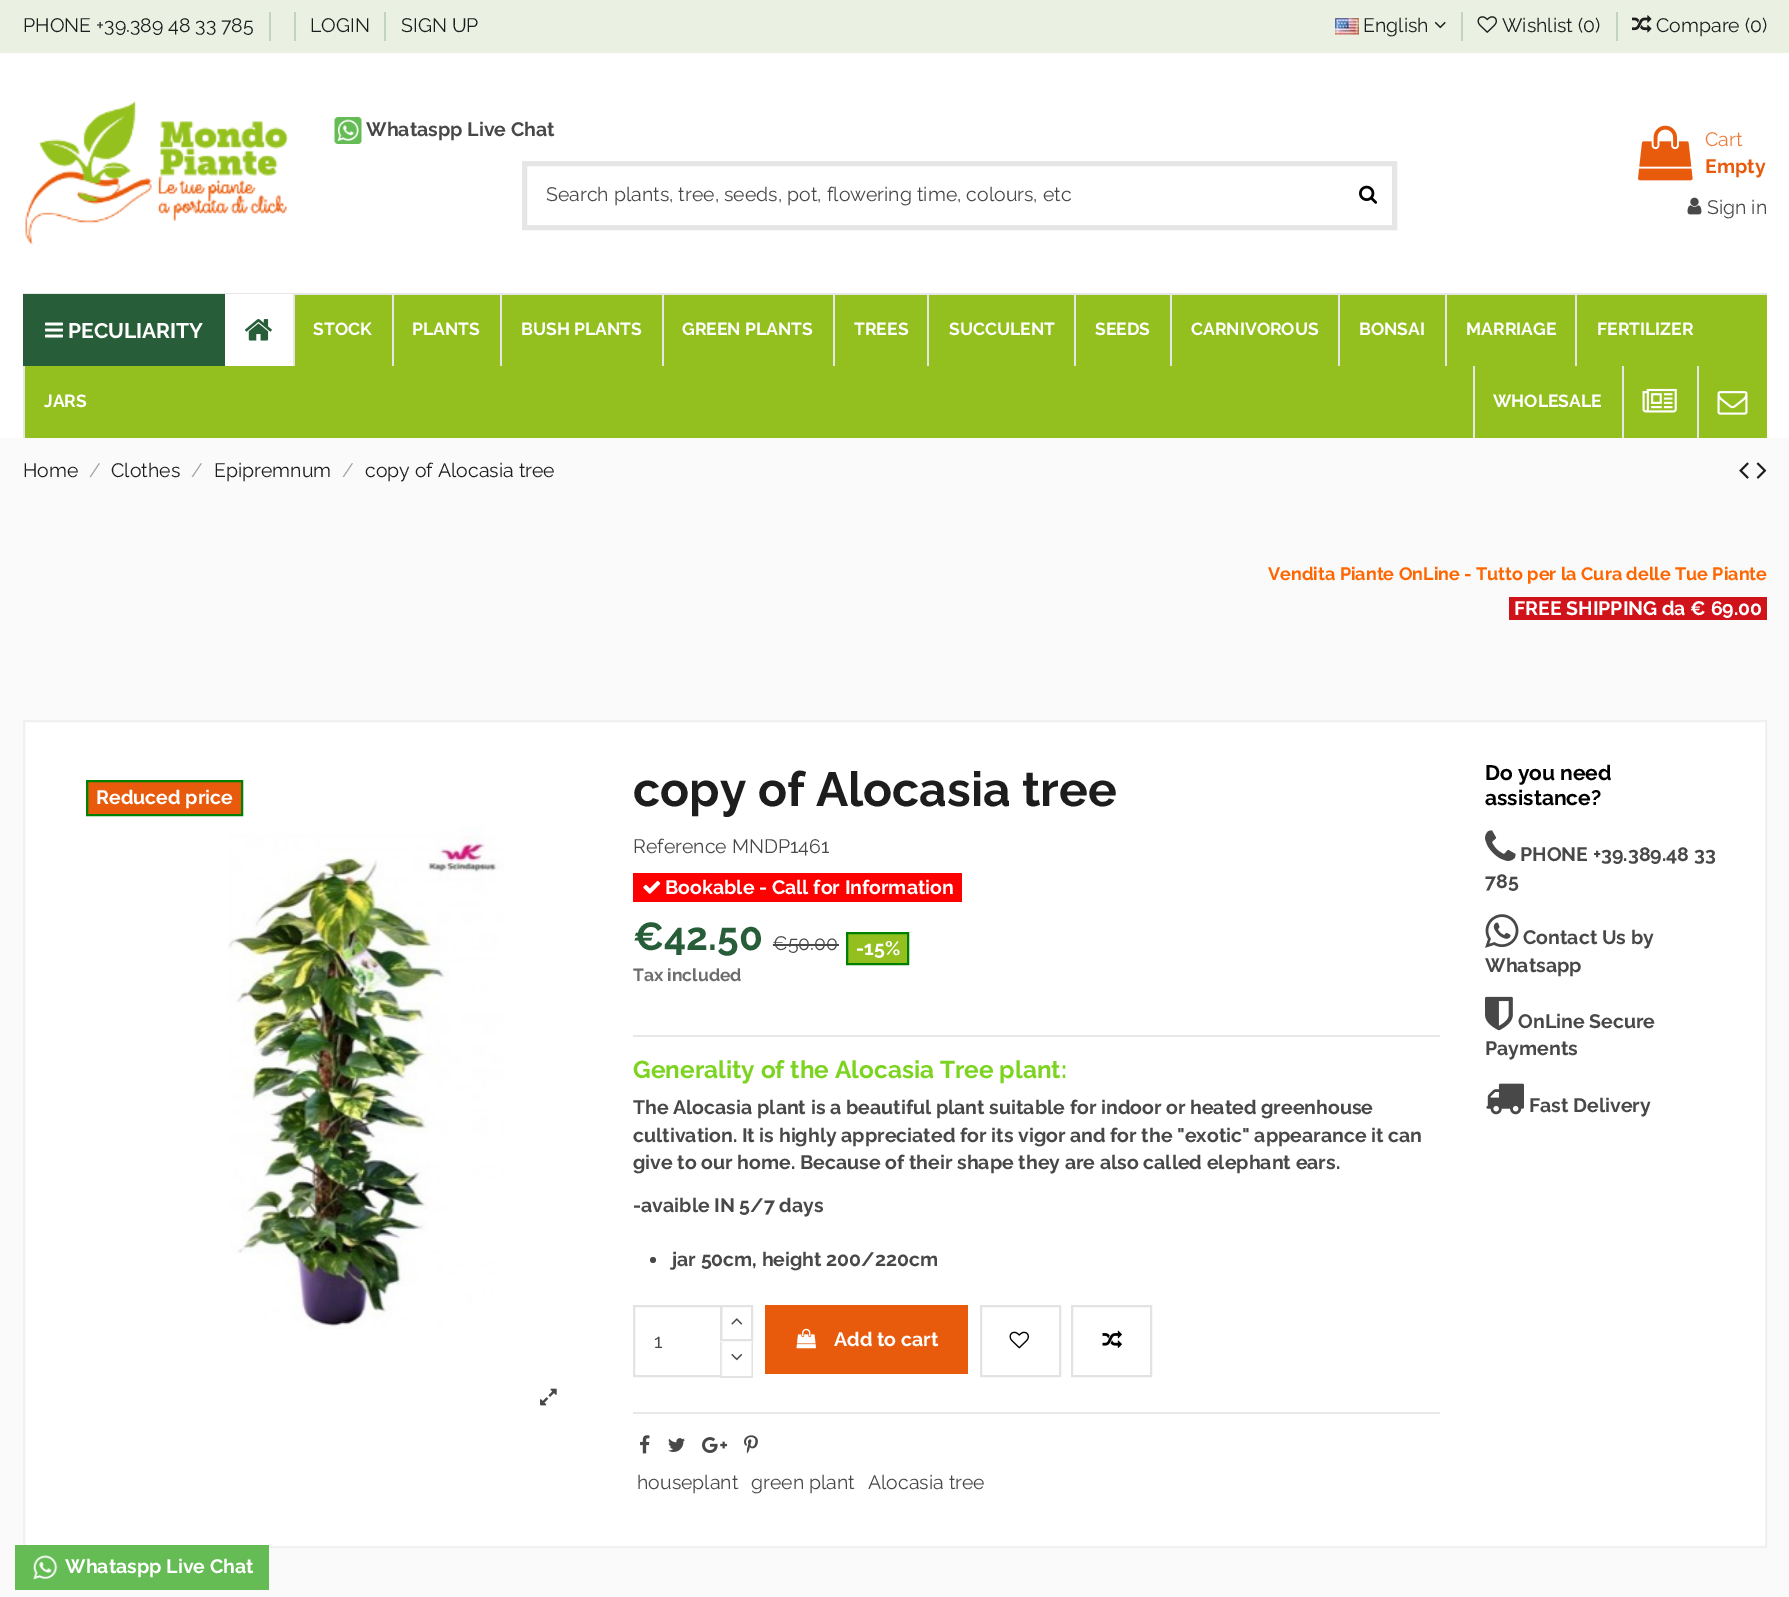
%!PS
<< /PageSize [1789 1597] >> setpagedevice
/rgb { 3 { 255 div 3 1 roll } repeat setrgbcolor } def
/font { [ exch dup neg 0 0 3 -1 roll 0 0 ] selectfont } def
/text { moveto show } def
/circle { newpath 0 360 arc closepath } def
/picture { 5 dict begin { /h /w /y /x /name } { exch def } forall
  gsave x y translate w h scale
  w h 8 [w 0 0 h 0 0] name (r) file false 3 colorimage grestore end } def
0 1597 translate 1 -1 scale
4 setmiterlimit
250 250 250 rgb
0 0 1789 1597 rectfill
255 255 255 rgb
0 53 1789 385 rectfill
234 241 227 rgb
0 0 1789 53 rectfill
195 211 193 rgb
269 12 2 29 rectfill
294 12 2 29 rectfill
384 12 2 29 rectfill
(img_01.rgb) 1335 18 24 17 picture
(img_02.rgb) 1434 21 12 8 picture
1461 12 2 29 rectfill
(img_03.rgb) 1477 16 20 17 picture
1616 12 2 29 rectfill
(img_04.rgb) 1632 15 20 18 picture
(img_05.rgb) 25 101 264 144 picture
(img_06.rgb) 334 117 28 27 picture
230 230 230 rgb
5 setlinewidth
524.5 163.5 870 64 rectstroke
(img_07.rgb) 1359 185 19 19 picture
(img_08.rgb) 1638 125 55 56 picture
(img_09.rgb) 1687 197 15 18 picture
147 191 31 rgb
25 295 1742 143 rectfill
230 230 230 rgb
23 293 1744 2 rectfill
255 255 255 rgb
225 294 68 72 rectfill
(img_10.rgb) 245 319 27 22 picture
230 230 230 rgb
293 294 2 72 rectfill
392 294 2 72 rectfill
500 294 2 72 rectfill
662 294 2 72 rectfill
833 294 2 72 rectfill
927 294 2 72 rectfill
1074 294 2 72 rectfill
1170 294 2 72 rectfill
1338 294 2 72 rectfill
1445 294 2 72 rectfill
1575 294 2 72 rectfill
23 366 2 72 rectfill
1473 366 2 72 rectfill
1622 366 2 72 rectfill
(img_11.rgb) 1642 388 35 25 picture
1697 366 2 72 rectfill
(img_12.rgb) 1717 391 31 24 picture
39 93 57 rgb
23 294 202 72 rectfill
(img_13.rgb) 45 322 18 16 picture
(img_14.rgb) 1739 462 10 17 picture
(img_15.rgb) 1756 462 11 17 picture
208 18 26 rgb
1509 597 258 23 rectfill
255 255 255 rgb
24 721 moveto 1742 0 rlineto 0 826 rlineto -1742 0 rlineto closepath gsave fill grestore
240 240 240 rgb
2 setlinewidth
stroke
232 91 12 rgb
87 781 moveto 155 0 rlineto 0 34 rlineto -155 0 rlineto closepath gsave fill grestore
0 128 0 rgb
stroke
(img_16.rgb) 228 826 276 504 picture
(img_17.rgb) 540 1388 17 18 picture
232 232 232 rgb
633 1035 807 2 rectfill
255 0 0 rgb
633 873 329 29 rectfill
(img_18.rgb) 643 880 18 14 picture
72 72 72 rgb
773 944 66 2 rectfill
147 191 31 rgb
847 933 moveto 61 0 rlineto 0 31 rlineto -61 0 rlineto closepath gsave fill grestore
0 128 0 rgb
stroke
72 72 72 rgb
653 1260 3 circle fill
227 227 227 rgb
634 1306 87 70 rectstroke
721 1306 31 34 rectstroke
(img_19.rgb) 731 1318 12 7 picture
255 255 255 rgb
720 1341 2 35 rectfill
227 227 227 rgb
753 1341 moveto 0 36 rlineto -1.5 -1.5 rlineto 0 -33 rlineto closepath fill
720 1376 33 2 rectfill
720 1377 moveto 0 -36 rlineto 1.5 1.5 rlineto 0 33 rlineto closepath fill
(img_20.rgb) 731 1353 12 8 picture
232 91 12 rgb
765 1305 203 69 rectfill
(img_21.rgb) 796 1328 20 21 picture
227 227 227 rgb
981 1306 79 70 rectstroke
(img_22.rgb) 1009 1331 20 18 picture
1072 1306 79 70 rectstroke
(img_23.rgb) 1102 1330 20 18 picture
232 232 232 rgb
633 1412 807 2 rectfill
(img_24.rgb) 640 1435 10 19 picture
(img_25.rgb) 668 1438 17 14 picture
(img_26.rgb) 702 1437 26 16 picture
(img_27.rgb) 744 1435 14 19 picture
(img_28.rgb) 1485 830 31 31 picture
(img_29.rgb) 1485 914 34 34 picture
(img_30.rgb) 1485 996 28 35 picture
(img_31.rgb) 1486 1083 38 32 picture
101 188 84 rgb
15 1545 254 45 rectfill
(img_32.rgb) 33 1555 25 25 picture
/Raleway-Regular 19.5 font
29 29 29 rgb
(PHONE +39.389 48 33 785) 23 32 text
(LOGIN) 310 32 text
(SIGN UP) 401 32 text
(English) 1363 32 text
(Wishlist \(0\)) 1502 32 text
(Compare \(0\)) 1656 32 text
/Raleway-Bold 19.5 font
72 72 72 rgb
(Whataspp Live Chat) 366 136 text
/Raleway-Regular 19.5 font
(Search plants, tree, seeds, pot, flowering time, colours, etc) 546 201 text
237 124 61 rgb
(Cart) 1705 146 text
/Raleway-Bold 19.5 font
232 91 12 rgb
(Empty) 1705 173 text
/Raleway-Regular 19.5 font
72 72 72 rgb
(Sign in) 1707 214 text
/Raleway-Bold 17.5 font
255 255 255 rgb
(STOCK) 313 335 text
(PLANTS) 412 335 text
(BUSH PLANTS) 521 335 text
(GREEN PLANTS) 682 335 text
(TREES) 854 335 text
(SUCCULENT) 949 335 text
(SEEDS) 1095 335 text
(CARNIVOROUS) 1191 335 text
(BONSAI) 1359 335 text
(MARRIAGE) 1466 335 text
(FERTILIZER) 1597 335 text
(JARS) 44 407 text
(WHOLESALE) 1493 407 text
/Raleway-Bold 21 font
(PECULIARITY) 68 338 text
/Raleway-Regular 19.5 font
29 29 29 rgb
(Home) 23 477 text
162 162 162 rgb
(/) 89 477 text
29 29 29 rgb
(Clothes) 111 477 text
162 162 162 rgb
(/) 191 477 text
29 29 29 rgb
(Epipremnum) 214 477 text
162 162 162 rgb
(/) 342 477 text
29 29 29 rgb
(copy of Alocasia tree) 365 477 text
/Raleway-Bold 18 font
255 102 0 rgb
(Vendita Piante OnLine - Tutto per la Cura delle Tue Piante) 1268 580 text
/Raleway-Bold 19.5 font
255 255 255 rgb
(FREE SHIPPING da € 69.00) 1514 615 text
(Reduced price) 96 804 text
/Raleway-Bold 48 font
29 29 29 rgb
(copy of Alocasia tree) 633 806 text
/Raleway-Regular 19.5 font
72 72 72 rgb
(Reference MNDP1461) 633 853 text
/Raleway-Bold 19.5 font
255 255 255 rgb
(Bookable - Call for Information) 665 894 text
/Raleway-Bold 39 font
39 93 57 rgb
(€42.50) 633 950 text
/Raleway-Regular 19.5 font
72 72 72 rgb
(€50.00) 772 950 text
/Raleway-Bold 19.5 font
255 255 255 rgb
(-15%) 856 955 text
/Raleway-Bold 17.5 font
109 109 109 rgb
(Tax included) 633 981 text
/Raleway-Bold 24.4 font
124 211 32 rgb
(Generality of the Alocasia Tree plant:) 633 1078 text
/Raleway-Bold 19.5 font
72 72 72 rgb
(The Alocasia plant is a beautiful plant suitable for indoor or heated greenhouse) 633 1114 text
(cultivation. It is highly appreciated for its vigor and for the "exotic" appearance it can) 633 1142 text
(give to our home. Because of their shape they are also called elephant ears.) 633 1169 text
(-avaible IN 5/7 days) 633 1212 text
(jar 50cm, height 200/220cm) 672 1266 text
/Raleway-Regular 19.5 font
(1) 654 1348 text
/Raleway-Bold 19.5 font
255 255 255 rgb
(Add to cart) 834 1346 text
/Raleway-Regular 19.5 font
72 72 72 rgb
(houseplant) 637 1489 text
(green plant) 751 1489 text
(Alocasia tree) 868 1489 text
/Raleway-Bold 21 font
0 0 0 rgb
(Do you need) 1485 780 text
(assistance?) 1485 805 text
/Raleway-Bold 19.5 font
72 72 72 rgb
(PHONE +39.389.48 33) 1520 861 text
(785) 1485 888 text
(Contact Us by) 1523 944 text
(Whatsapp) 1485 972 text
(OnLine Secure) 1518 1028 text
(Payments) 1485 1055 text
(Fast Delivery) 1529 1112 text
255 255 255 rgb
(Whataspp Live Chat) 65 1573 text
showpage
